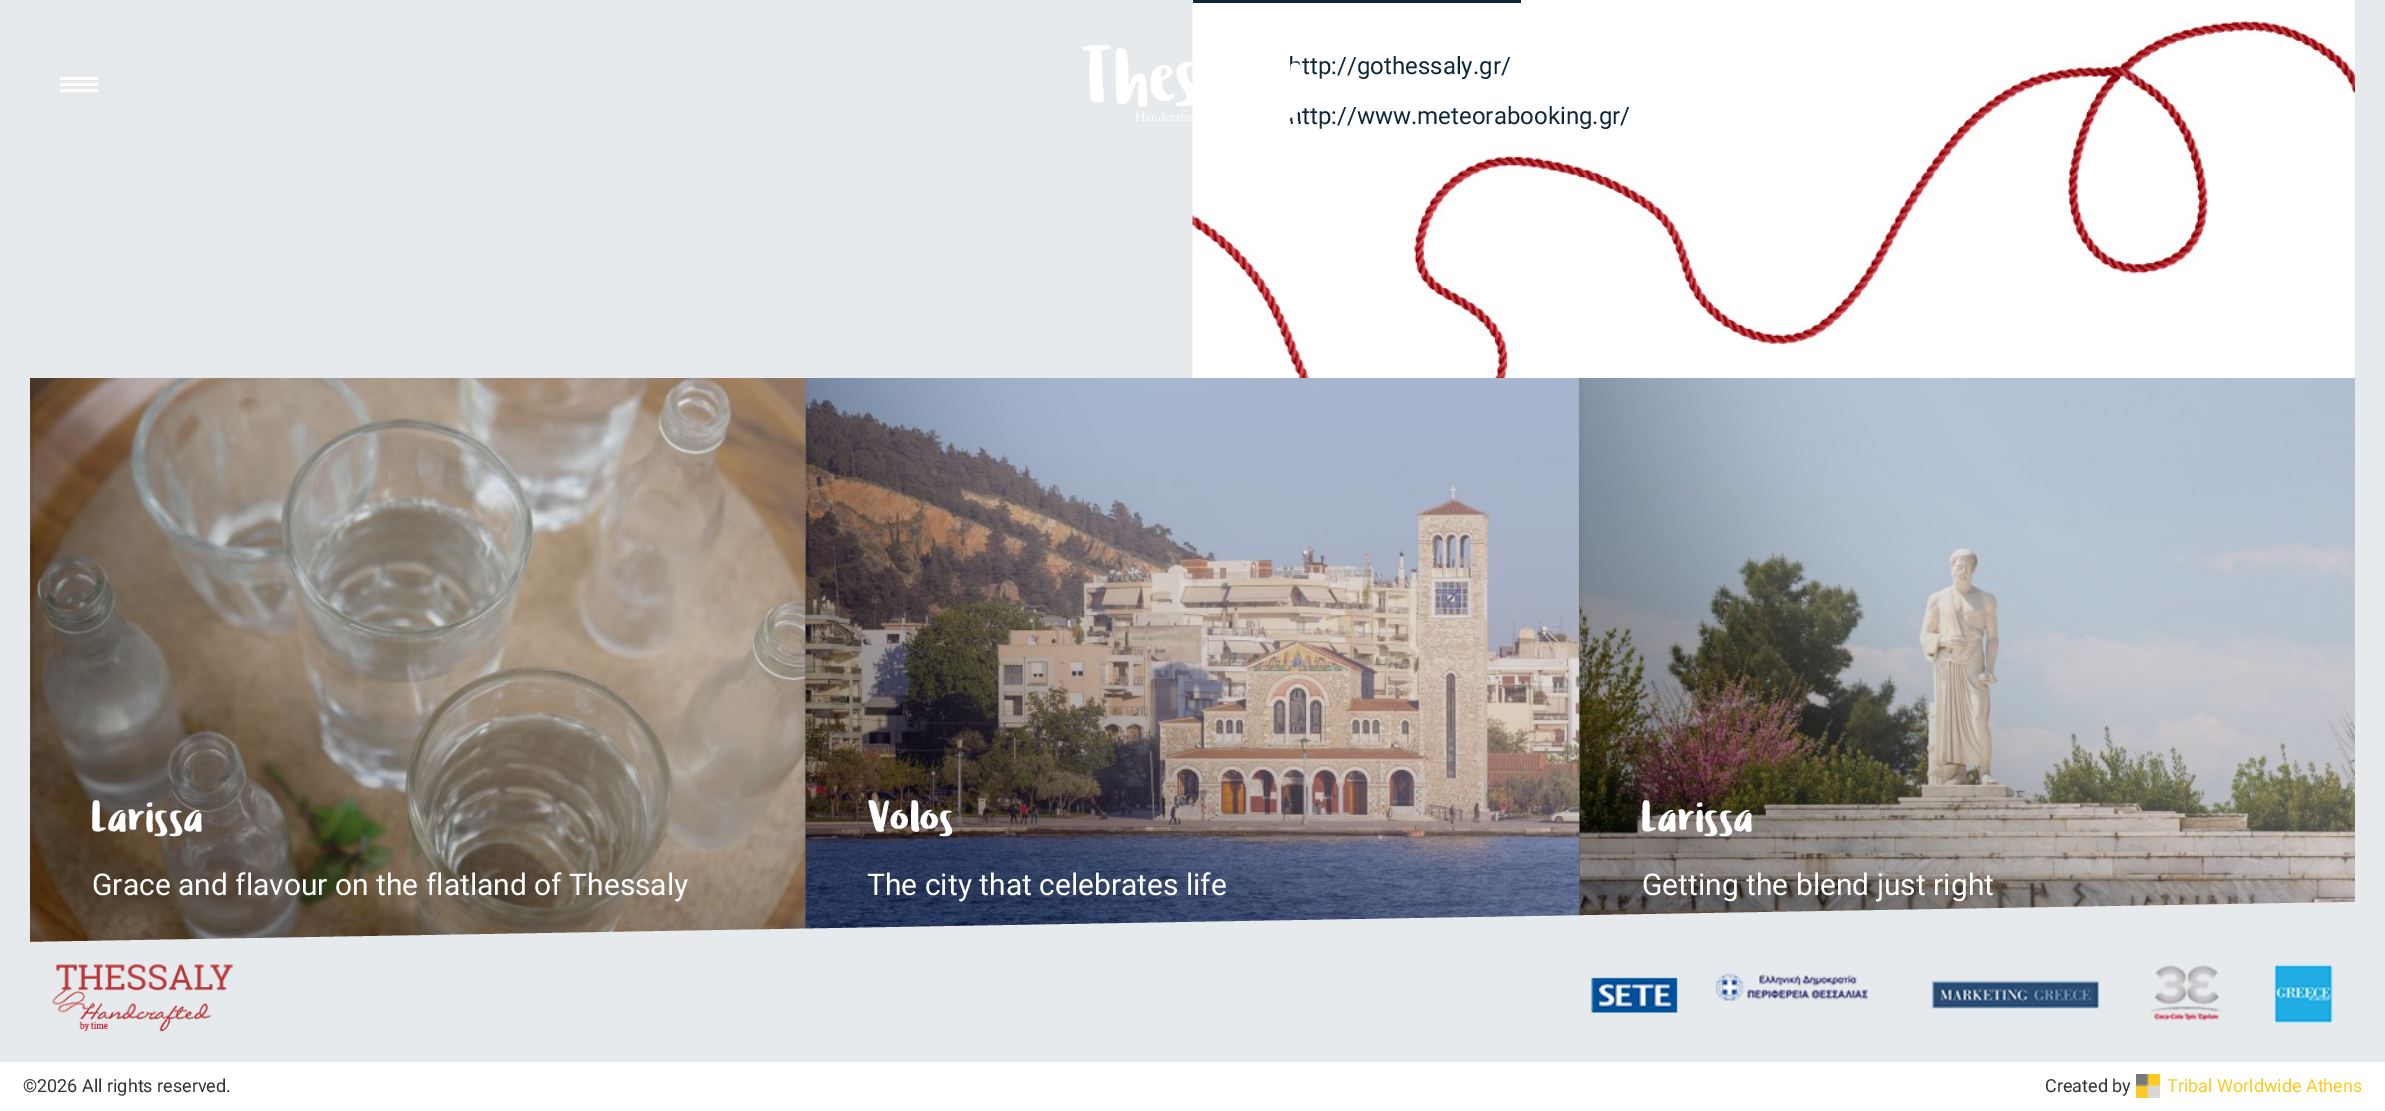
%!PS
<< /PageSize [2385 1111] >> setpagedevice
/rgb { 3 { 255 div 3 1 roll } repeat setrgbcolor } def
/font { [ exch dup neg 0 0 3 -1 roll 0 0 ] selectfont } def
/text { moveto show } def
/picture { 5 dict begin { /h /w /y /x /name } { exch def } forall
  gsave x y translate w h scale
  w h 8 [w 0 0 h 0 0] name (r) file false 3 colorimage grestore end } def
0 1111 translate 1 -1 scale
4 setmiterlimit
231 234 237 rgb
0 0 2385 1111 rectfill
255 255 255 rgb
60 77 38 3 rectfill
60 83 38 3 rectfill
60 89 38 3 rectfill
(img_03.rgb) 1192 0 1163 378 picture
(img_02.rgb) 2164 84 9 14 picture
14 40 57 rgb
1193 0 328 3 rectfill
193 193 193 rgb
30 378 776 563 rectfill
(img_04.rgb) 30 378 776 564 picture
(img_05.rgb) 30 378 776 564 picture
806 378 774 550 rectfill
(img_06.rgb) 805 378 775 551 picture
(img_07.rgb) 805 378 775 551 picture
1580 378 775 537 rectfill
(img_08.rgb) 1579 378 776 538 picture
(img_09.rgb) 1579 378 776 538 picture
gsave
30 0 2325 1032 rectclip
231 234 237 rgb
29 942 moveto 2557 -44 rlineto 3 150 rlineto -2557 44 rlineto closepath fill
grestore
(img_10.rgb) 52 964 181 68 picture
(img_11.rgb) 1591 964 742 59 picture
255 255 255 rgb
0 1062 2385 49 rectfill
(img_12.rgb) 2136 1074 24 24 picture
/Roboto-Regular 24 font
14 40 57 rgb
(ttp://gothessaly.gr/) 1302 74 text
(http://www.meteorabooking.gr/) 1289 124 text
(img_01.rgb) 1082 45 219 76 picture
/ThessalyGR-Regular 45 font
255 255 255 rgb
(Larissa) 92 832 text
/Roboto-Regular 30 font
(Grace and flavour on the flatland of Thessaly) 92 895 text
/ThessalyGR-Regular 45 font
(Volos) 867 832 text
/Roboto-Regular 30 font
(The city that celebrates life) 867 895 text
/ThessalyGR-Regular 45 font
(Larissa) 1642 832 text
/Roboto-Regular 30 font
(Getting the blend just right) 1642 895 text
/Roboto-Regular 18 font
51 51 51 rgb
(©2026 All rights reserved.) 23 1092 text
(Created by) 2045 1092 text
252 202 33 rgb
(Tribal Worldwide Athens) 2167 1092 text
showpage
